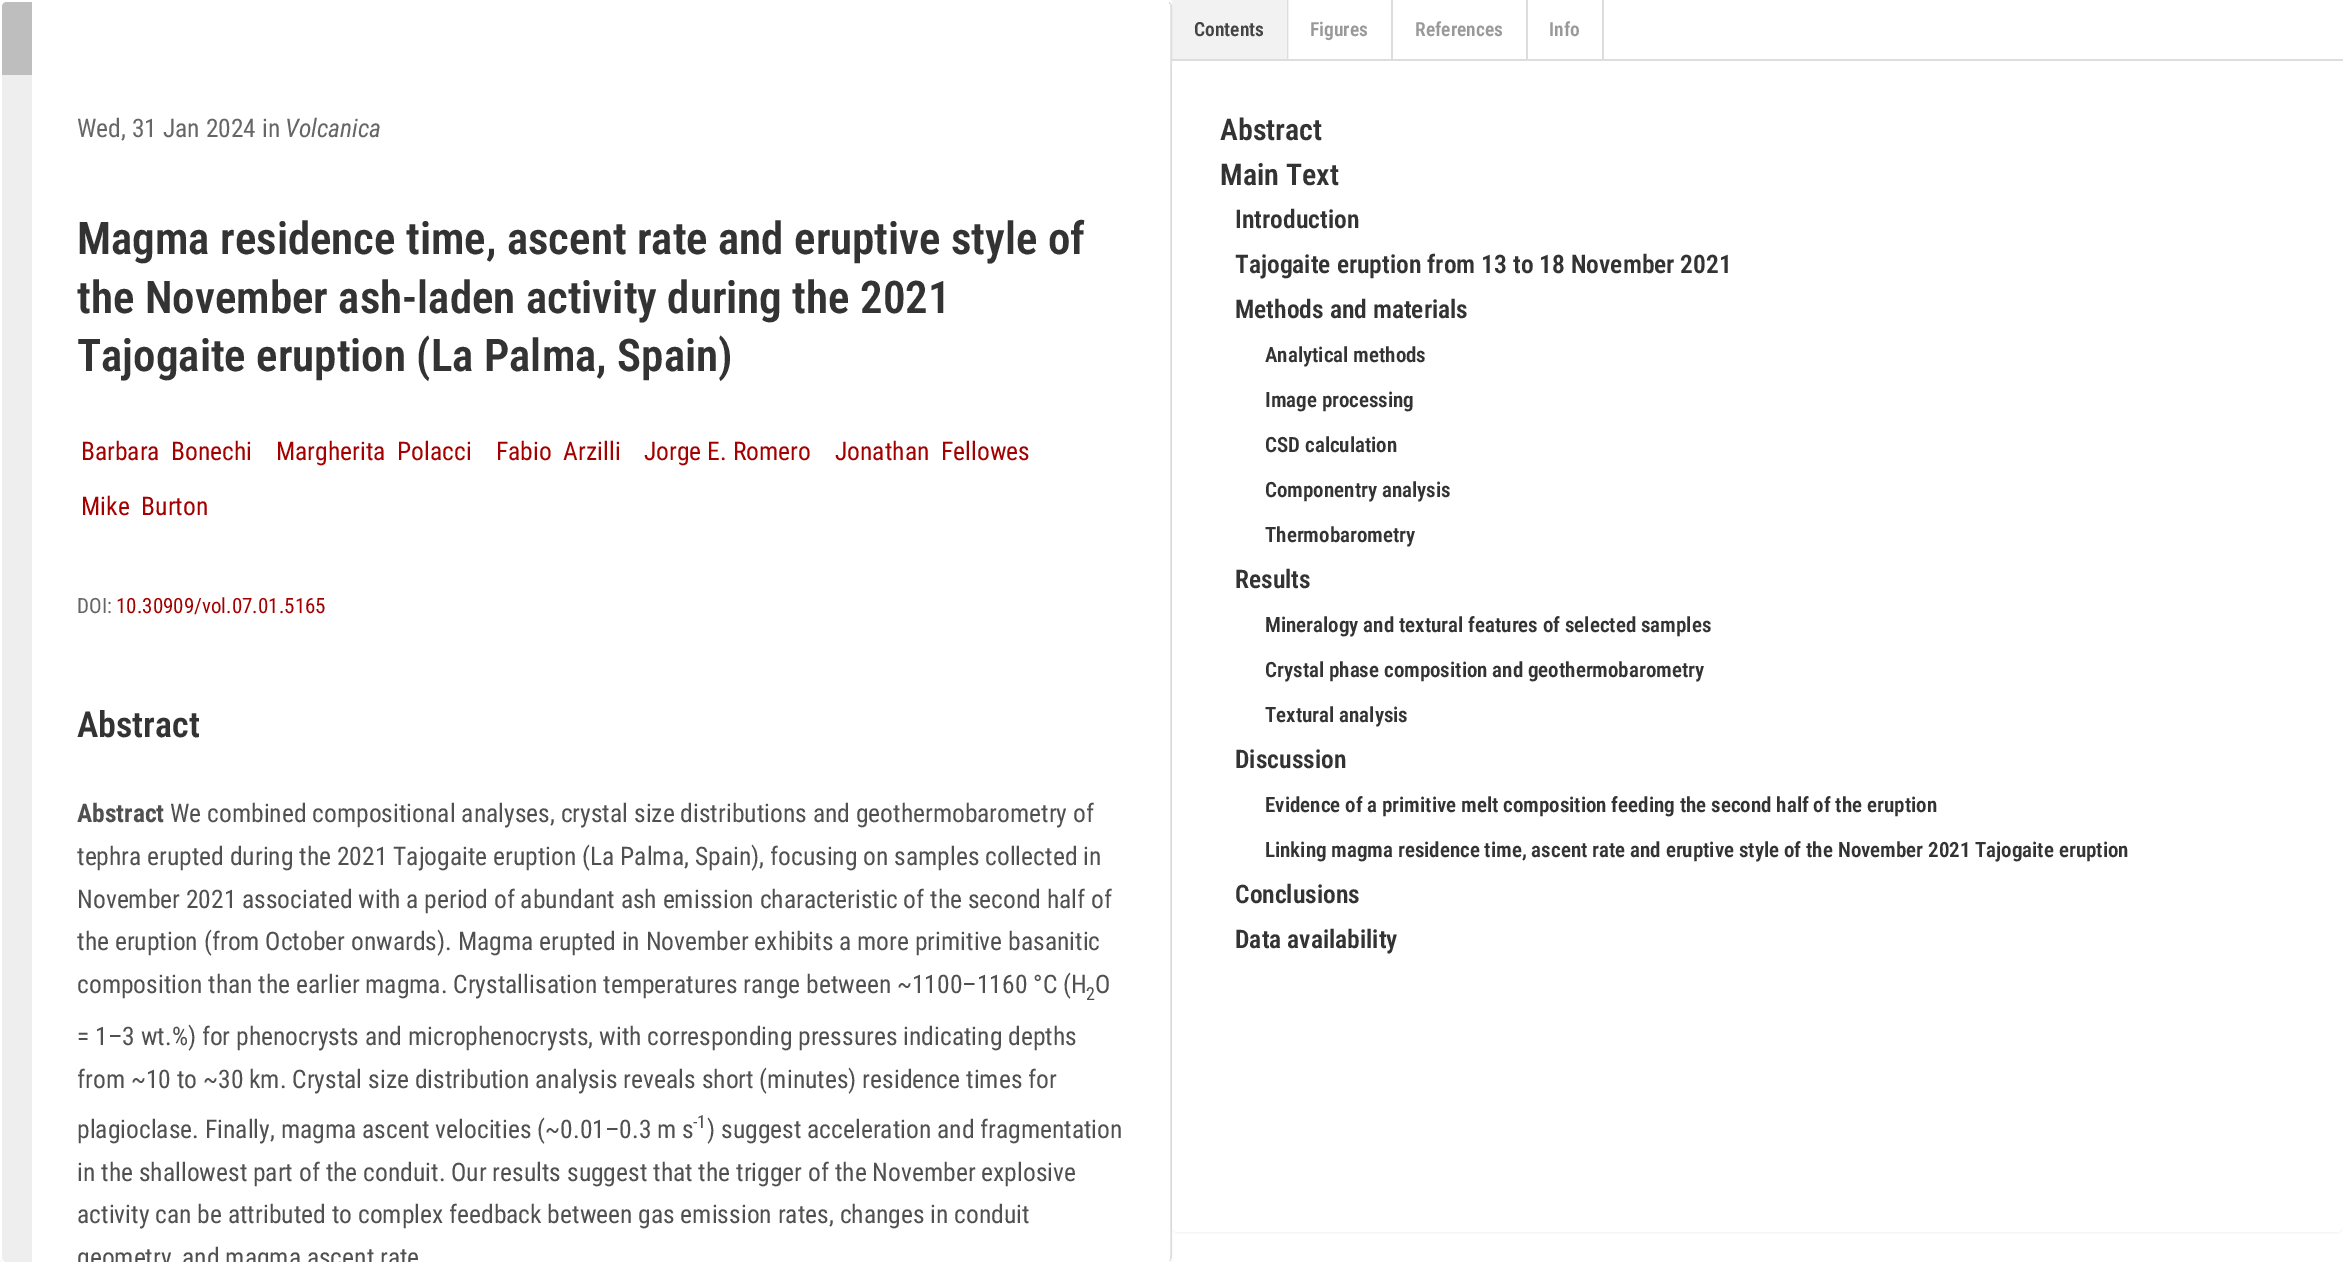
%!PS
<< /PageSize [2343 1262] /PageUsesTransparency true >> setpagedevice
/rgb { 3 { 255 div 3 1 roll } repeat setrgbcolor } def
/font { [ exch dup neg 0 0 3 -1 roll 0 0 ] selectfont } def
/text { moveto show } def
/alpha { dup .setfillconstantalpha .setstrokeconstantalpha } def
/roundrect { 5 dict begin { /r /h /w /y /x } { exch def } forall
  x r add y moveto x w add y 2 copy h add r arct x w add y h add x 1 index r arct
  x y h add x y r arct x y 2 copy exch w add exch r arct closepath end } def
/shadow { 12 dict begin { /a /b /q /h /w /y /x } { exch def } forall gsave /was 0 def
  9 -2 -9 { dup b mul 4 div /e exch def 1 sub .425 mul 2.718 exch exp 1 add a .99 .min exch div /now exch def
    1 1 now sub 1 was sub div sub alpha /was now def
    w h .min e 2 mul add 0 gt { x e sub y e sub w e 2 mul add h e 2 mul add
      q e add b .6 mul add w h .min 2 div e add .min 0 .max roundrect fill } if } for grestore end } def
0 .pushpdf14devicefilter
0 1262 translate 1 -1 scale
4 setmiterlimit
255 255 255 rgb
0 0 2343 1262 rectfill
0 0 0 rgb
0 2 1172 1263 6 1 0.05 shadow
255 255 255 rgb
0 0 1172 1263 6 roundrect fill
221 221 221 rgb
1.5 setlinewidth
1169 2.5 moveto 1 1 2 2 2 3.5 rcurveto 0 1251 rlineto 0 1.5 -1 2.5 -2 3.5 rcurveto stroke
255 255 255 rgb
2 2 1168 1260 5 roundrect fill
238 238 238 rgb
7 2 moveto 25 0 rlineto 0 1260 rlineto -25 0 rlineto -3 0 -5 -2 -5 -5 rcurveto 0 -1250 rlineto 0 -3 2 -5 5 -5 rcurveto closepath fill
0.2 alpha
0 0 0 rgb
7 2 moveto 25 0 rlineto 0 73 rlineto -30 0 rlineto 0 -68 rlineto 0 -3 2 -5 5 -5 rcurveto closepath fill
1 alpha
255 255 255 rgb
1140 2 moveto 25 0 rlineto 3 0 5 2 5 5 rcurveto 0 1250 rlineto 0 3 -2 5 -5 5 rcurveto -25 0 rlineto closepath fill
0 0 0 rgb
1172 62 1171 1171 6 1 0.05 shadow
255 255 255 rgb
1172 60 1171 1172 6 roundrect fill
221 221 221 rgb
1172 59 1171 2 rectfill
0.05 alpha
0 0 0 rgb
1172 0 117 59 rectfill
gsave
1172 0 1171 59 rectclip
1 alpha
221 221 221 rgb
1288 0 moveto 0 64 rlineto -1 -4 rlineto 0 -60 rlineto closepath fill
grestore
1 alpha
221 221 221 rgb
1391 0 2 59 rectfill
1526 0 2 59 rectfill
1602 0 2 59 rectfill
/RobotoCondensed-Regular 25.5 font
102 102 102 rgb
(Wed, 31 Jan 2024 in) 77 137 text
/RobotoCondensed-Italic 25.5 font
(Volcanica) 285 137 text
/RobotoCondensed-SemiBold 45 font
51 51 51 rgb
(Magma residence time, ascent rate and eruptive style of) 77 254 text
(the November ash-laden activity during the 2021) 77 313 text
(Tajogaite eruption \(La Palma, Spain\)) 77 371 text
/RobotoCondensed-Regular 25.5 font
164 0 0 rgb
(Barbara  Bonechi) 81 460 text
(Margherita  Polacci) 276 460 text
(Fabio  Arzilli) 496 460 text
(Jorge E. Romero) 644 460 text
(Jonathan  Fellowes) 835 460 text
(Mike  Burton) 81 515 text
/RobotoCondensed-Regular 21 font
102 102 102 rgb
(DOI:) 77 613 text
164 0 0 rgb
(10.30909/vol.07.01.5165) 116 613 text
/RobotoCondensed-SemiBold 36 font
51 51 51 rgb
(Abstract) 77 737 text
/RobotoCondensed-Bold 25.5 font
80 80 80 rgb
(Abstract) 77 822 text
/RobotoCondensed-Regular 25.5 font
(We combined compositional analyses, crystal size distributions and geothermobarometry of) 170 822 text
(tephra erupted during the 2021 Tajogaite eruption \(La Palma, Spain\), focusing on samples collected in) 77 865 text
(November 2021 associated with a period of abundant ash emission characteristic of the second half of) 77 908 text
(the eruption \(from October onwards\). Magma erupted in November exhibits a more primitive basanitic) 77 950 text
(composition than the earlier magma. Crystallisation temperatures range between ~1100–1160 °C \(H) 77 993 text
/RobotoCondensed-Regular 18 font
(2) 1086 1000 text
/RobotoCondensed-Regular 25.5 font
(O) 1095 993 text
(= 1–3 wt.%\) for phenocrysts and microphenocrysts, with corresponding pressures indicating depths) 77 1045 text
(from ~10 to ~30 km. Crystal size distribution analysis reveals short \(minutes\) residence times for) 77 1088 text
(plagioclase. Finally, magma ascent velocities \(~0.01–0.3 m s) 77 1138 text
/RobotoCondensed-Regular 18 font
(-1) 693 1128 text
/RobotoCondensed-Regular 25.5 font
(\) suggest acceleration and fragmentation) 707 1138 text
(in the shallowest part of the conduit. Our results suggest that the trigger of the November explosive) 77 1181 text
(activity can be attributed to complex feedback between gas emission rates, changes in conduit) 77 1223 text
(geometry, and magma ascent rate) 77 1266 text
/RobotoCondensed-SemiBold 19.5 font
68 68 68 rgb
(Contents) 1194 36 text
153 153 153 rgb
(Figures) 1310 36 text
(References) 1415 36 text
(Info) 1549 36 text
/RobotoCondensed-SemiBold 30 font
51 51 51 rgb
(Abstract) 1220 140 text
(Main Text) 1220 185 text
/RobotoCondensed-SemiBold 25.5 font
(Introduction) 1235 228 text
(Tajogaite eruption from 13 to 18 November 2021) 1235 273 text
(Methods and materials) 1235 318 text
/RobotoCondensed-SemiBold 21 font
(Analytical methods) 1265 362 text
(Image processing) 1265 407 text
(CSD calculation) 1265 452 text
(Componentry analysis) 1265 497 text
(Thermobarometry) 1265 542 text
/RobotoCondensed-SemiBold 25.5 font
(Results) 1235 588 text
/RobotoCondensed-SemiBold 21 font
(Mineralogy and textural features of selected samples) 1265 632 text
(Crystal phase composition and geothermobarometry) 1265 677 text
(Textural analysis) 1265 722 text
/RobotoCondensed-SemiBold 25.5 font
(Discussion) 1235 768 text
/RobotoCondensed-SemiBold 21 font
(Evidence of a primitive melt composition feeding the second half of the eruption) 1265 812 text
(Linking magma residence time, ascent rate and eruptive style of the November 2021 Tajogaite eruption) 1265 857 text
/RobotoCondensed-SemiBold 25.5 font
(Conclusions) 1235 903 text
(Data availability) 1235 948 text
.poppdf14devicefilter showpage
